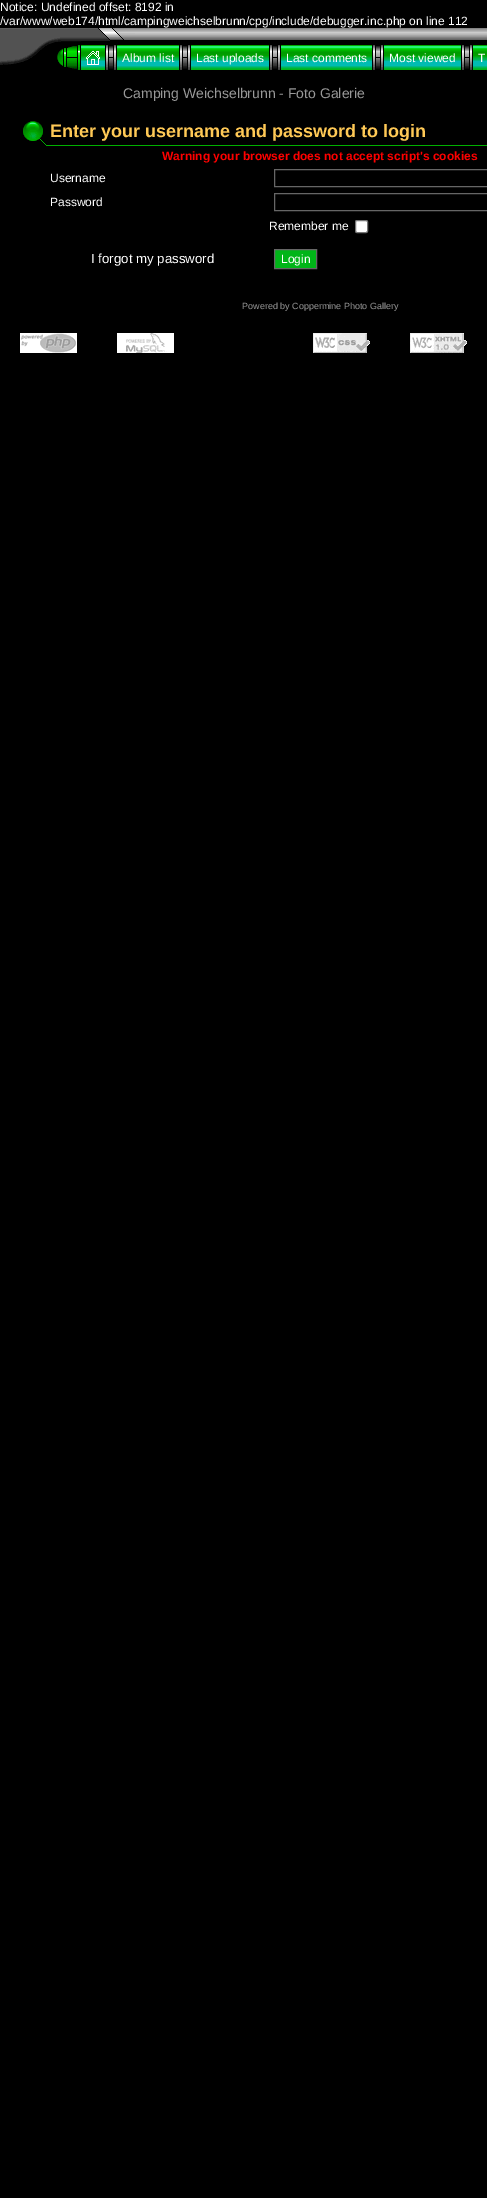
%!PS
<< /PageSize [487 2198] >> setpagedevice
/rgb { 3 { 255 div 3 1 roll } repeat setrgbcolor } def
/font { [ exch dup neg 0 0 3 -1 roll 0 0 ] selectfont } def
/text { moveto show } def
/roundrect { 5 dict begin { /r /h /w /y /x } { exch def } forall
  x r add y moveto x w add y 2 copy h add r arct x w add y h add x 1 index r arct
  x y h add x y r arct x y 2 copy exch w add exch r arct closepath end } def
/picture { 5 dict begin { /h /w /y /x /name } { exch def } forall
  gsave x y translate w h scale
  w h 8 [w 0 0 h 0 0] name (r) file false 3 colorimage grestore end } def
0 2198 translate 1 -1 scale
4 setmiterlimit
0 0 0 rgb
0 0 487 2198 rectfill
(img_01.rgb) 0 28 135 17 picture
(img_02.rgb) 135 28 352 12 picture
(img_03.rgb) 0 45 47 20 picture
(img_04.rgb) 57 45 23 25 picture
(img_05.rgb) 81 45 24 25 picture
(img_06.rgb) 86 51 14 14 picture
(img_07.rgb) 106 45 10 25 picture
(img_08.rgb) 117 45 62 25 picture
(img_07.rgb) 180 45 10 25 picture
(img_09.rgb) 191 45 78 25 picture
(img_07.rgb) 270 45 10 25 picture
(img_10.rgb) 281 45 91 25 picture
(img_07.rgb) 373 45 10 25 picture
(img_11.rgb) 384 45 77 25 picture
(img_07.rgb) 462 45 10 25 picture
(img_12.rgb) 473 45 14 25 picture
0 176 0 rgb
46 145 441 1 rectfill
(img_13.rgb) 20 121 26 25 picture
102 102 102 rgb
274.5 169.5 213 17 rectstroke
274.5 193.5 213 17 rectstroke
255 255 255 rgb
355.5 220.5 12 12 1.5 roundrect gsave fill grestore
118 118 118 rgb
stroke
0 181 24 rgb
274.5 249.5 moveto 42 0 rlineto 0 19 rlineto -42 0 rlineto closepath gsave fill grestore
102 102 102 rgb
stroke
(img_14.rgb) 20 333 57 20 picture
(img_15.rgb) 117 333 57 20 picture
(img_16.rgb) 313 333 57 20 picture
(img_17.rgb) 410 333 57 20 picture
/LiberationSans-Regular 12 font
255 255 255 rgb
(Notice: Undefined offset: 8192 in) 0 11 text
(/var/www/web174/html/campingweichselbrunn/cpg/include/debugger.inc.php on line 112) 0 25 text
(Album list) 122 62 text
(Last uploads) 196 62 text
(Last comments) 286 62 text
(Most viewed) 389 62 text
(T) 478 62 text
/LiberationSans-Regular 14 font
153 153 153 rgb
(Camping Weichselbrunn - Foto Galerie) 123 98 text
/LiberationSans-Bold 18 font
255 201 86 rgb
(Enter your username and password to login) 50 137 text
/LiberationSans-Bold 12 font
255 0 0 rgb
(Warning your browser does not accept script's cookies) 162 160 text
/LiberationSans-Regular 12 font
255 255 255 rgb
(Username) 50 182 text
(Password) 50 206 text
(Remember me) 269 230 text
/LiberationSans-Regular 13.25 font
(I forgot my password) 91 263 text
/LiberationSans-Regular 12 font
(Login) 281 263 text
/LiberationSans-Regular 9 font
153 153 153 rgb
(Powered by Coppermine Photo Gallery) 242 309 text
showpage
